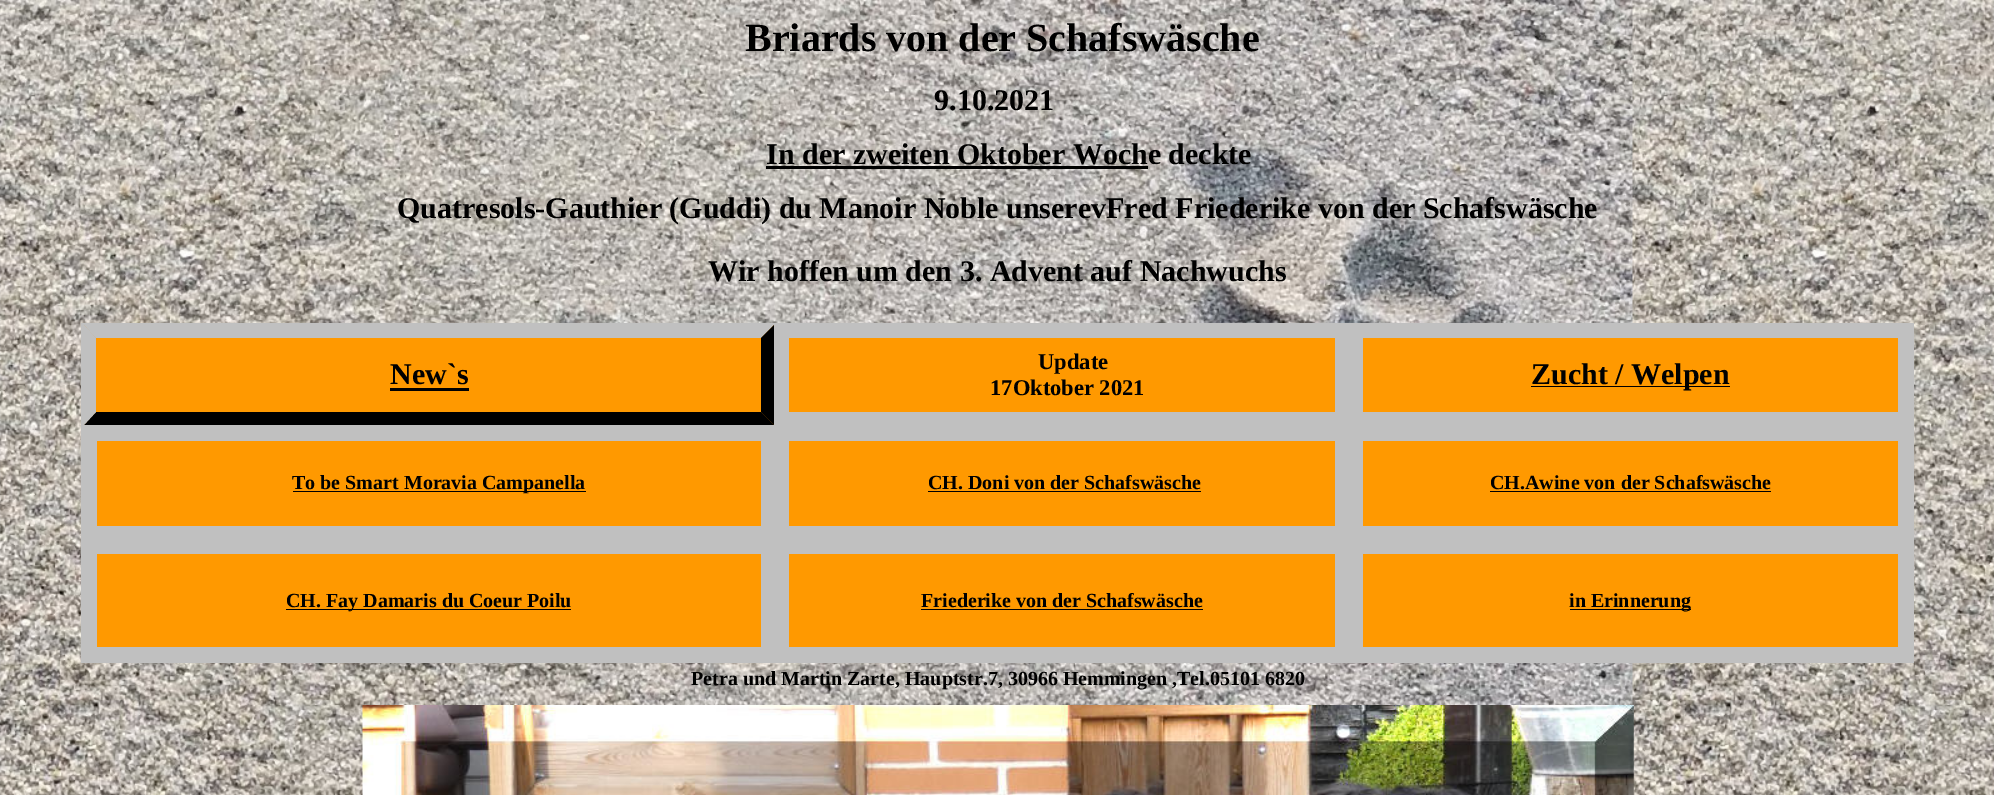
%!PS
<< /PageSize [1994 795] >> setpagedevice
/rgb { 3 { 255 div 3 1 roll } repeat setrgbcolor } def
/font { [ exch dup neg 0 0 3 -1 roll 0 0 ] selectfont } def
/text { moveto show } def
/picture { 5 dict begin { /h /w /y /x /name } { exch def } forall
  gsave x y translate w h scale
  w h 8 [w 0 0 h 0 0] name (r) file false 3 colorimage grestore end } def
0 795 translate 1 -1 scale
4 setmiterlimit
255 255 255 rgb
0 0 1994 795 rectfill
(img_01.rgb) 0 0 1994 795 picture
0 0 0 rgb
766 166 382 3 rectfill
192 192 192 rgb
81 323 1833 340 rectfill
255 153 0 rgb
84 325 690 100 rectfill
192 192 192 rgb
84 325 moveto 690 0 rlineto -13 13 rlineto -665 0 rlineto closepath fill
0 0 0 rgb
774 325 moveto 0 100 rlineto -13 -13 rlineto 0 -74 rlineto closepath fill
774 425 moveto -690 0 rlineto 12 -13 rlineto 665 0 rlineto closepath fill
192 192 192 rgb
84 425 moveto 0 -100 rlineto 12 13 rlineto 0 74 rlineto closepath fill
0 0 0 rgb
390 388 79 3 rectfill
255 153 0 rgb
789 338 546 74 rectfill
1363 338 535 74 rectfill
0 0 0 rgb
1531 386 199 1 rectfill
255 153 0 rgb
97 441 664 85 rectfill
0 0 0 rgb
293 491 293 1 rectfill
255 153 0 rgb
789 441 546 85 rectfill
0 0 0 rgb
928 491 273 1 rectfill
255 153 0 rgb
1363 441 535 85 rectfill
0 0 0 rgb
1490 491 281 1 rectfill
255 153 0 rgb
97 554 664 93 rectfill
0 0 0 rgb
286 609 285 1 rectfill
255 153 0 rgb
789 554 546 93 rectfill
0 0 0 rgb
921 609 282 1 rectfill
255 153 0 rgb
1363 554 535 93 rectfill
0 0 0 rgb
1570 609 121 1 rectfill
(img_02.rgb) 362 705 1272 90 picture
/LiberationSerif-Bold 40 font
(Briards von der Schafswäsche) 745 51 text
/LiberationSerif-Bold 30 font
(9.10.2021) 934 110 text
(In der zweiten Oktober Woche deckte) 766 164 text
(Quatresols-Gauthier \(Guddi\) du Manoir Noble unserevFred Friederike von der Schafswäsche) 397 218 text
(Wir hoffen um den 3. Advent auf Nachwuchs) 708 281 text
(New`s) 390 384 text
/LiberationSerif-Bold 22.5 font
(Update) 1038 369 text
(17Oktober 2021) 990 395 text
/LiberationSerif-Bold 30 font
(Zucht / Welpen) 1531 384 text
/LiberationSerif-Bold 20 font
(To be Smart Moravia Campanella) 292 489 text
(CH. Doni von der Schafswäsche) 928 489 text
(CH.Awine von der Schafswäsche) 1490 489 text
(CH. Fay Damaris du Coeur Poilu) 286 607 text
(Friederike von der Schafswäsche) 921 607 text
(in Erinnerung) 1569 607 text
(Petra und Martin Zarte, Hauptstr.7, 30966 Hemmingen ,Tel.05101 6820) 691 685 text
showpage
